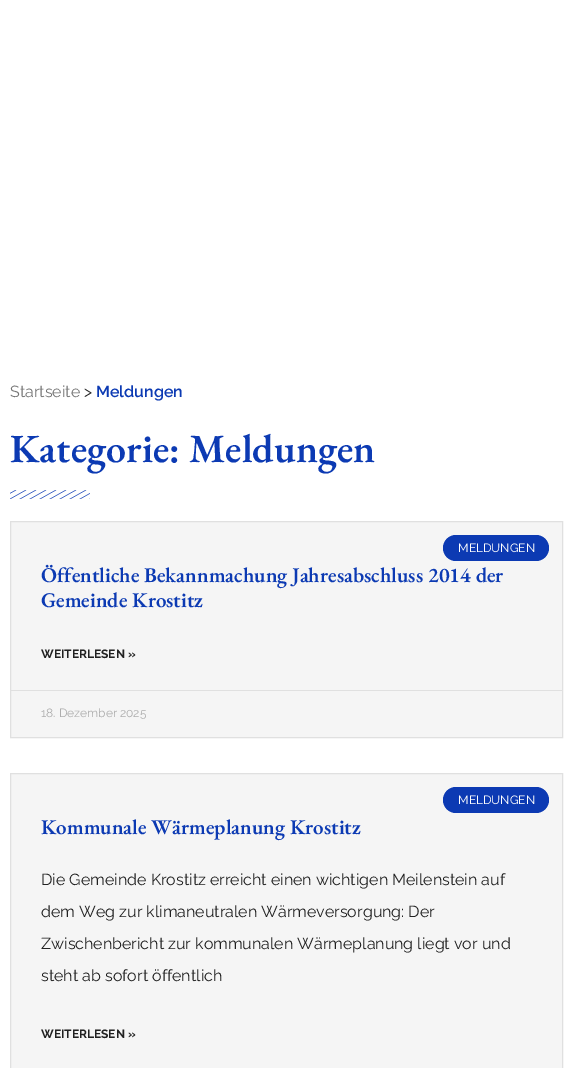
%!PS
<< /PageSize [573 1068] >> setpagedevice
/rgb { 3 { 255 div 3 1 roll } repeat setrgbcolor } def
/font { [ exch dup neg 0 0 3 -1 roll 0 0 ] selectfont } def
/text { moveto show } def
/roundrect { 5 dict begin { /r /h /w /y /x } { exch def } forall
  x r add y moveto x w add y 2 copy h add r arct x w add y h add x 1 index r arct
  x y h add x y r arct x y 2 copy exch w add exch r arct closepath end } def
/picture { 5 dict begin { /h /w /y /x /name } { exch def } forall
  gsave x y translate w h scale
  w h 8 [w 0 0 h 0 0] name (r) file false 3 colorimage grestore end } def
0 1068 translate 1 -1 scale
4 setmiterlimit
255 255 255 rgb
0 0 573 1068 rectfill
(img_01.rgb) 10 490 80 9 picture
245 245 245 rgb
10.5 521.5 moveto 552 0 rlineto 0 216 rlineto -552 0 rlineto closepath gsave fill grestore
224 224 224 rgb
stroke
12 58 179 rgb
443 535 106 26 13 roundrect fill
224 224 224 rgb
11 690 551 1 rectfill
245 245 245 rgb
10.5 773.5 moveto 552 0 rlineto 0 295 rlineto -552 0 rlineto closepath gsave fill grestore
224 224 224 rgb
stroke
12 58 179 rgb
443 787 106 26 13 roundrect fill
/Raleway-Regular 16 font
117 117 117 rgb
(Startseite) 10 397 text
33 33 33 rgb
(>) 84 397 text
/Raleway-SemiBold 16 font
12 58 179 rgb
(Meldungen) 96 397 text
/EBGaramond-SemiBold 40 font
(Kategorie: Meldungen) 10 462 text
/Raleway-Regular 12 font
255 255 255 rgb
(MELDUNGEN) 458 552 text
/EBGaramond-SemiBold 21 font
12 58 179 rgb
(Öffentliche Bekannmachung Jahresabschluss 2014 der) 41 582 text
(Gemeinde Krostitz) 41 607 text
/Raleway-Bold 12 font
33 33 33 rgb
(WEITERLESEN ») 41 658 text
/Raleway-Regular 12 font
173 173 173 rgb
(18. Dezember 2025) 41 717 text
255 255 255 rgb
(MELDUNGEN) 458 804 text
/EBGaramond-SemiBold 21 font
12 58 179 rgb
(Kommunale Wärmeplanung Krostitz) 41 834 text
/Raleway-Regular 16 font
33 33 33 rgb
(Die Gemeinde Krostitz erreicht einen wichtigen Meilenstein auf) 41 885 text
(dem Weg zur klimaneutralen Wärmeversorgung: Der) 41 917 text
(Zwischenbericht zur kommunalen Wärmeplanung liegt vor und) 41 949 text
(steht ab sofort öffentlich) 41 981 text
/Raleway-Bold 12 font
(WEITERLESEN ») 41 1038 text
showpage
